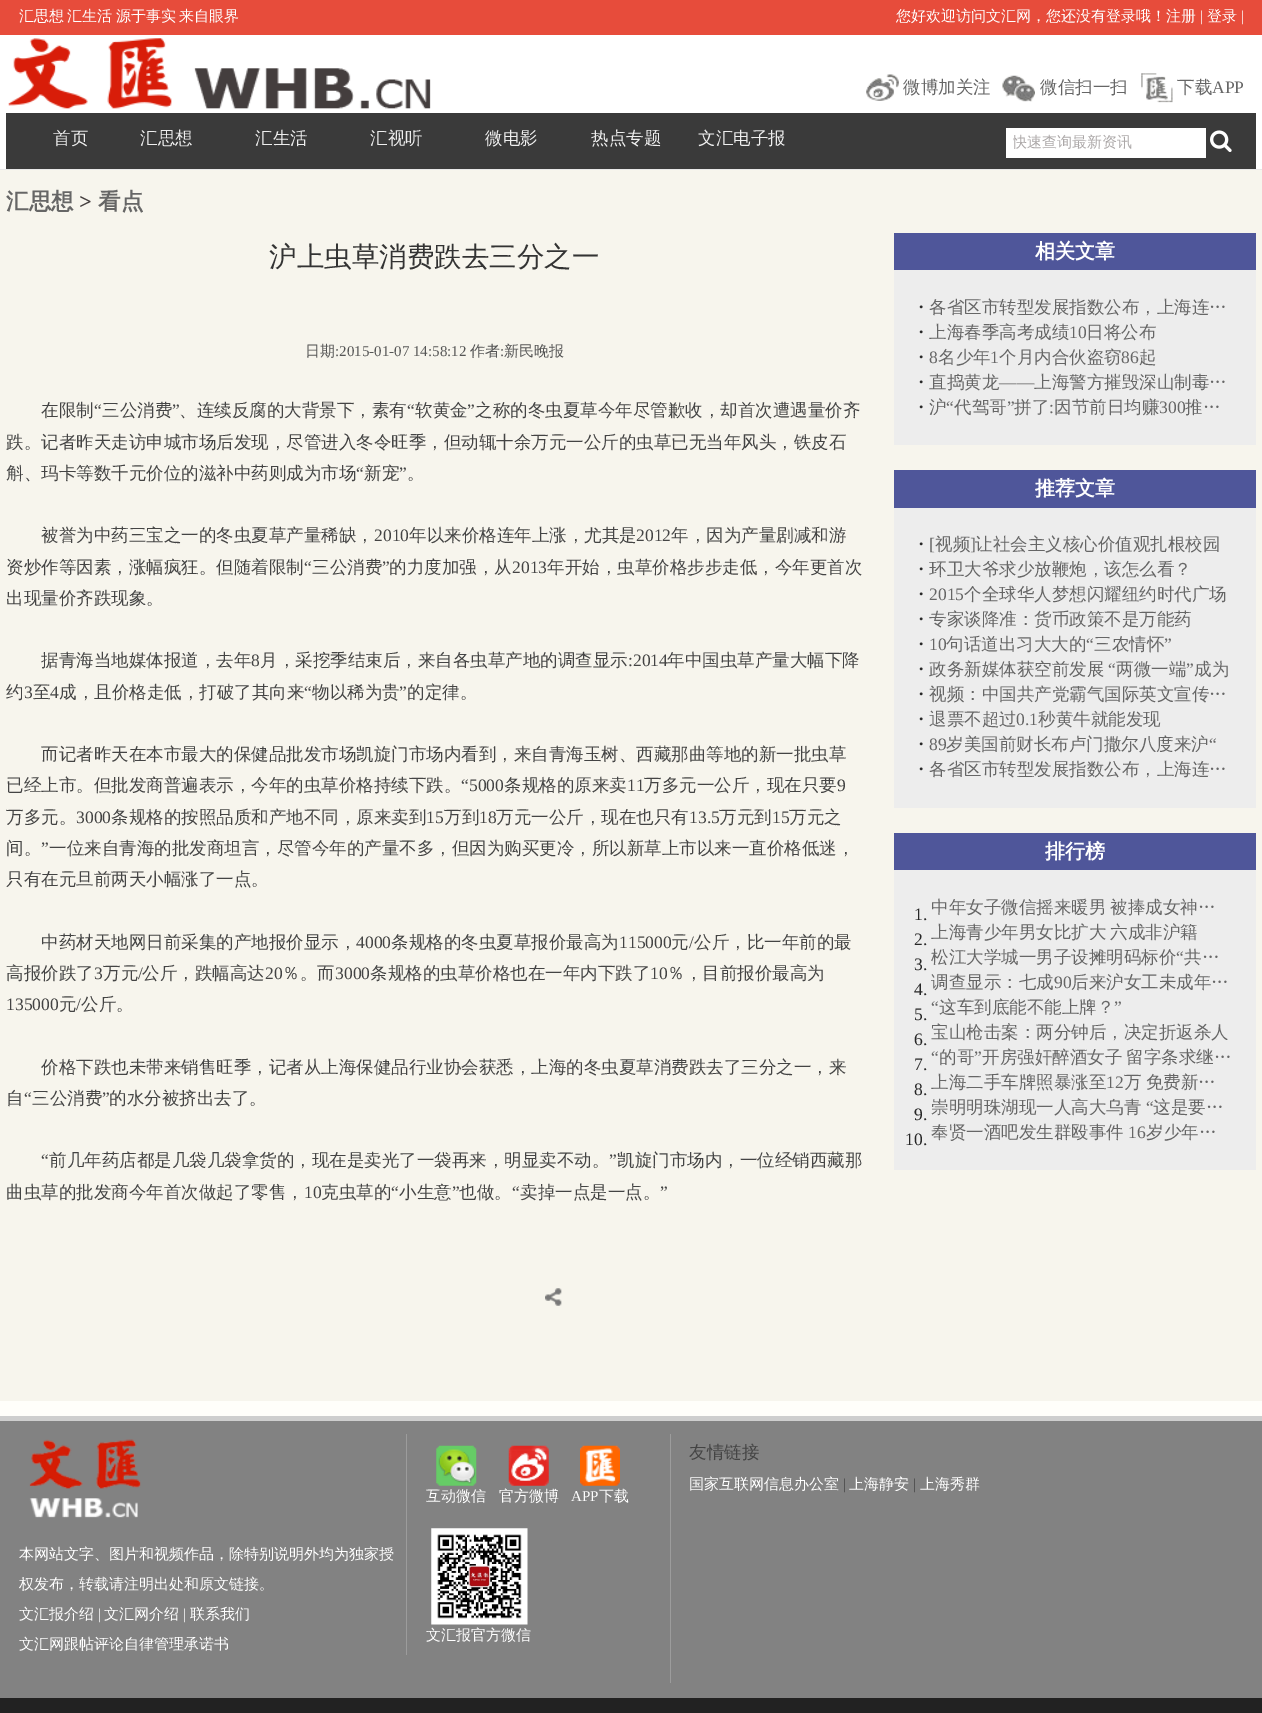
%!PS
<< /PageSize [1262 1713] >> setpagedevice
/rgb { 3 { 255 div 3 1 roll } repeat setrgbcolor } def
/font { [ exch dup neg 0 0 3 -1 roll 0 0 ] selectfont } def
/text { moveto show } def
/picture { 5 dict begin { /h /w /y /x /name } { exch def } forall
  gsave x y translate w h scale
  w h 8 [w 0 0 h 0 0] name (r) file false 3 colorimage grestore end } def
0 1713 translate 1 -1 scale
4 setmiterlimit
255 254 250 rgb
0 0 1262 1713 rectfill
231 76 59 rgb
0 0 1262 35 rectfill
255 255 255 rgb
0 35 1262 134 rectfill
231 231 231 rgb
0 169 1262 1 rectfill
(img_01.rgb) 8 38 423 71 picture
(img_02.rgb) 866 74 33 27 picture
(img_03.rgb) 1002 75 33 27 picture
(img_04.rgb) 1141 73 32 30 picture
58 58 58 rgb
6 113 1250 56 rectfill
255 255 255 rgb
1006 128 200 30 rectfill
(img_05.rgb) 1210 130 22 22 picture
247 245 237 rgb
0 170 1262 1231 rectfill
(img_06.rgb) 545 1288 17 18 picture
79 86 154 rgb
894 233 362 37 rectfill
237 237 237 rgb
894 270 362 175 rectfill
79 86 154 rgb
894 470 362 38 rectfill
237 237 237 rgb
894 508 362 300 rectfill
79 86 154 rgb
894 833 362 37 rectfill
237 237 237 rgb
894 870 362 300 rectfill
130 130 130 rgb
0 1421 1262 277 rectfill
206 206 206 rgb
0 1416 1262 5 rectfill
156 156 156 rgb
670 1434 1 249 rectfill
(img_07.rgb) 29 1439 112 79 picture
406 1434 1 221 rectfill
(img_08.rgb) 436 1445 41 41 picture
(img_09.rgb) 508 1445 41 41 picture
(img_10.rgb) 580 1445 40 41 picture
(img_11.rgb) 431 1528 97 97 picture
34 34 34 rgb
0 1698 1262 15 rectfill
/WenQuanYiZenHei-Medium 15 font
255 255 255 rgb
19 21 moveto -1 0 32 (汇思想 汇生活) widthshow
116 21 moveto -1 0 32 (源于事实 来自眼界) widthshow
(您好欢迎访问文汇网，您还没有登录哦！注册) 896 21 text
/LiberationSerif-Regular 15 font
(|) 1200 21 text
/WenQuanYiZenHei-Medium 15 font
(登录) 1207 21 text
/LiberationSerif-Regular 15 font
(|) 1241 21 text
/WenQuanYiZenHei-Medium 17.5 font
102 102 102 rgb
(微博加关注) 903 93 text
(微信扫一扫) 1040 93 text
(下载) 1177 93 text
/LiberationSerif-Regular 17.5 font
(APP) 1212 93 text
/WenQuanYiZenHei-Medium 17.5 font
238 238 238 rgb
(首页) 53 144 text
(汇思想) 140 144 text
(汇生活) 255 144 text
(汇视听) 370 144 text
(微电影) 485 144 text
(热点专题) 591 144 text
(文汇电子报) 698 144 text
gsave
1013 133 193 21 rectclip
/WenQuanYiZenHei-Medium 15 font
172 168 168 rgb
(快速查询最新资讯) 1012 147 text
grestore
/WenQuanYiZenHei-Bold 22.5 font
102 102 102 rgb
(汇思想) 6 209 text
/LiberationSerif-Bold 22.5 font
68 62 62 rgb
(>) 79 209 text
/WenQuanYiZenHei-Bold 22.5 font
102 102 102 rgb
(看点) 98 209 text
/WenQuanYiZenHei-Medium 27.5 font
51 51 51 rgb
(沪上虫草消费跌去三分之一) 269 266 text
/WenQuanYiZenHei-Medium 15 font
85 85 85 rgb
(日期) 305 356 text
/LiberationSerif-Regular 15 font
(:2015-01-07 14:58:12) 335 356 text
/WenQuanYiZenHei-Medium 15 font
(作者) 470 356 text
/LiberationSerif-Regular 15 font
(:) 500 356 text
/WenQuanYiZenHei-Medium 15 font
(新民晚报) 504 356 text
/WenQuanYiZenHei-Medium 17.5 font
68 68 68 rgb
(在限制) 41 416 text
/LiberationSerif-Regular 17.5 font
(“) 94 416 text
/WenQuanYiZenHei-Medium 17.5 font
(三公消费) 102 416 text
/LiberationSerif-Regular 17.5 font
(”) 172 416 text
/WenQuanYiZenHei-Medium 17.5 font
(、连续反腐的大背景下，素有) 179 416 text
/LiberationSerif-Regular 17.5 font
(“) 407 416 text
/WenQuanYiZenHei-Medium 17.5 font
(软黄金) 415 416 text
/LiberationSerif-Regular 17.5 font
(”) 467 416 text
/WenQuanYiZenHei-Medium 17.5 font
(之称的冬虫夏草今年尽管歉收，却首次遭遇量价齐) 475 416 text
(跌。记者昨天走访申城市场后发现，尽管进入冬令旺季，但动辄十余万元一公斤的虫草已无当年风头，铁皮石) 6 448 text
(斛、玛卡等数千元价位的滋补中药则成为市场) 6 479 text
/LiberationSerif-Regular 17.5 font
(“) 356 479 text
/WenQuanYiZenHei-Medium 17.5 font
(新宠) 364 479 text
/LiberationSerif-Regular 17.5 font
(”) 399 479 text
/WenQuanYiZenHei-Medium 17.5 font
(。) 407 479 text
(被誉为中药三宝之一的冬虫夏草产量稀缺，) 41 541 text
/LiberationSerif-Regular 17.5 font
(2010) 374 541 text
/WenQuanYiZenHei-Medium 17.5 font
(年以来价格连年上涨，尤其是) 409 541 text
/LiberationSerif-Regular 17.5 font
(2012) 636 541 text
/WenQuanYiZenHei-Medium 17.5 font
(年，因为产量剧减和游) 671 541 text
(资炒作等因素，涨幅疯狂。但随着限制) 6 573 text
/LiberationSerif-Regular 17.5 font
(“) 304 573 text
/WenQuanYiZenHei-Medium 17.5 font
(三公消费) 312 573 text
/LiberationSerif-Regular 17.5 font
(”) 382 573 text
/WenQuanYiZenHei-Medium 17.5 font
(的力度加强，从) 389 573 text
/LiberationSerif-Regular 17.5 font
(2013) 512 573 text
/WenQuanYiZenHei-Medium 17.5 font
(年开始，虫草价格步步走低，今年更首次) 547 573 text
(出现量价齐跌现象。) 6 604 text
(据青海当地媒体报道，去年) 41 666 text
/LiberationSerif-Regular 17.5 font
(8) 251 666 text
/WenQuanYiZenHei-Medium 17.5 font
(月，采挖季结束后，来自各虫草产地的调查显示) 260 666 text
/LiberationSerif-Regular 17.5 font
(:2014) 628 666 text
/WenQuanYiZenHei-Medium 17.5 font
(年中国虫草产量大幅下降) 667 666 text
(约) 6 698 text
/LiberationSerif-Regular 17.5 font
(3) 24 698 text
/WenQuanYiZenHei-Medium 17.5 font
(至) 33 698 text
/LiberationSerif-Regular 17.5 font
(4) 50 698 text
/WenQuanYiZenHei-Medium 17.5 font
(成，且价格走低，打破了其向来) 59 698 text
/LiberationSerif-Regular 17.5 font
(“) 304 698 text
/WenQuanYiZenHei-Medium 17.5 font
(物以稀为贵) 312 698 text
/LiberationSerif-Regular 17.5 font
(”) 399 698 text
/WenQuanYiZenHei-Medium 17.5 font
(的定律。) 407 698 text
(而记者昨天在本市最大的保健品批发市场凯旋门市场内看到，来自青海玉树、西藏那曲等地的新一批虫草) 41 760 text
(已经上市。但批发商普遍表示，今年的虫草价格持续下跌。) 6 791 text
/LiberationSerif-Regular 17.5 font
(“5000) 461 791 text
/WenQuanYiZenHei-Medium 17.5 font
(条规格的原来卖) 504 791 text
/LiberationSerif-Regular 17.5 font
(11) 627 791 text
/WenQuanYiZenHei-Medium 17.5 font
(万多元一公斤，现在只要) 644 791 text
/LiberationSerif-Regular 17.5 font
(9) 837 791 text
/WenQuanYiZenHei-Medium 17.5 font
(万多元。) 6 823 text
/LiberationSerif-Regular 17.5 font
(3000) 76 823 text
/WenQuanYiZenHei-Medium 17.5 font
(条规格的按照品质和产地不同，原来卖到) 111 823 text
/LiberationSerif-Regular 17.5 font
(15) 426 823 text
/WenQuanYiZenHei-Medium 17.5 font
(万到) 444 823 text
/LiberationSerif-Regular 17.5 font
(18) 479 823 text
/WenQuanYiZenHei-Medium 17.5 font
(万元一公斤，现在也只有) 496 823 text
/LiberationSerif-Regular 17.5 font
(13.5) 689 823 text
/WenQuanYiZenHei-Medium 17.5 font
(万元到) 719 823 text
/LiberationSerif-Regular 17.5 font
(15) 772 823 text
/WenQuanYiZenHei-Medium 17.5 font
(万元之) 789 823 text
(间。) 6 854 text
/LiberationSerif-Regular 17.5 font
(”) 41 854 text
/WenQuanYiZenHei-Medium 17.5 font
(一位来自青海的批发商坦言，尽管今年的产量不多，但因为购买更冷，所以新草上市以来一直价格低迷，) 49 854 text
(只有在元旦前两天小幅涨了一点。) 6 885 text
(中药材天地网日前采集的产地报价显示，) 41 948 text
/LiberationSerif-Regular 17.5 font
(4000) 356 948 text
/WenQuanYiZenHei-Medium 17.5 font
(条规格的冬虫夏草报价最高为) 391 948 text
/LiberationSerif-Regular 17.5 font
(115000) 619 948 text
/WenQuanYiZenHei-Medium 17.5 font
(元) 671 948 text
/LiberationSerif-Regular 17.5 font
(/) 689 948 text
/WenQuanYiZenHei-Medium 17.5 font
(公斤，比一年前的最) 694 948 text
(高报价跌了) 6 979 text
/LiberationSerif-Regular 17.5 font
(3) 94 979 text
/WenQuanYiZenHei-Medium 17.5 font
(万元) 103 979 text
/LiberationSerif-Regular 17.5 font
(/) 138 979 text
/WenQuanYiZenHei-Medium 17.5 font
(公斤，跌幅高达) 142 979 text
/LiberationSerif-Regular 17.5 font
(20) 265 979 text
/WenQuanYiZenHei-Medium 17.5 font
(％。而) 282 979 text
/LiberationSerif-Regular 17.5 font
(3000) 335 979 text
/WenQuanYiZenHei-Medium 17.5 font
(条规格的虫草价格也在一年内下跌了) 370 979 text
/LiberationSerif-Regular 17.5 font
(10) 650 979 text
/WenQuanYiZenHei-Medium 17.5 font
(％，目前报价最高为) 667 979 text
/LiberationSerif-Regular 17.5 font
(135000) 6 1010 text
/WenQuanYiZenHei-Medium 17.5 font
(元) 59 1010 text
/LiberationSerif-Regular 17.5 font
(/) 76 1010 text
/WenQuanYiZenHei-Medium 17.5 font
(公斤。) 81 1010 text
(价格下跌也未带来销售旺季，记者从上海保健品行业协会获悉，上海的冬虫夏草消费跌去了三分之一，来) 41 1073 text
(自) 6 1104 text
/LiberationSerif-Regular 17.5 font
(“) 24 1104 text
/WenQuanYiZenHei-Medium 17.5 font
(三公消费) 32 1104 text
/LiberationSerif-Regular 17.5 font
(”) 102 1104 text
/WenQuanYiZenHei-Medium 17.5 font
(的水分被挤出去了。) 109 1104 text
/LiberationSerif-Regular 17.5 font
(“) 41 1166 text
/WenQuanYiZenHei-Medium 17.5 font
(前几年药店都是几袋几袋拿货的，现在是卖光了一袋再来，明显卖不动。) 49 1166 text
/LiberationSerif-Regular 17.5 font
(”) 609 1166 text
/WenQuanYiZenHei-Medium 17.5 font
(凯旋门市场内，一位经销西藏那) 617 1166 text
(曲虫草的批发商今年首次做起了零售，) 6 1198 text
/LiberationSerif-Regular 17.5 font
(10) 304 1198 text
/WenQuanYiZenHei-Medium 17.5 font
(克虫草的) 321 1198 text
/LiberationSerif-Regular 17.5 font
(“) 391 1198 text
/WenQuanYiZenHei-Medium 17.5 font
(小生意) 399 1198 text
/LiberationSerif-Regular 17.5 font
(”) 452 1198 text
/WenQuanYiZenHei-Medium 17.5 font
(也做。) 459 1198 text
/LiberationSerif-Regular 17.5 font
(“) 512 1198 text
/WenQuanYiZenHei-Medium 17.5 font
(卖掉一点是一点。) 520 1198 text
/LiberationSerif-Regular 17.5 font
(”) 660 1198 text
/WenQuanYiZenHei-Bold 20 font
255 255 255 rgb
(相关文章) 1035 258 text
/LiberationSerif-Bold 17.5 font
39 39 39 rgb
(.) 919 308 text
/WenQuanYiZenHei-Medium 17.5 font
102 102 102 rgb
(各省区市转型发展指数公布，上海连…) 929 313 text
/LiberationSerif-Bold 17.5 font
39 39 39 rgb
(.) 919 333 text
/WenQuanYiZenHei-Medium 17.5 font
102 102 102 rgb
(上海春季高考成绩) 929 338 text
/LiberationSerif-Regular 17.5 font
(10) 1069 338 text
/WenQuanYiZenHei-Medium 17.5 font
(日将公布) 1086 338 text
/LiberationSerif-Bold 17.5 font
39 39 39 rgb
(.) 919 358 text
/LiberationSerif-Regular 17.5 font
102 102 102 rgb
(8) 929 363 text
/WenQuanYiZenHei-Medium 17.5 font
(名少年) 938 363 text
/LiberationSerif-Regular 17.5 font
(1) 990 363 text
/WenQuanYiZenHei-Medium 17.5 font
(个月内合伙盗窃) 999 363 text
/LiberationSerif-Regular 17.5 font
(86) 1121 363 text
/WenQuanYiZenHei-Medium 17.5 font
(起) 1139 363 text
/LiberationSerif-Bold 17.5 font
39 39 39 rgb
(.) 919 383 text
/WenQuanYiZenHei-Medium 17.5 font
102 102 102 rgb
(直捣黄龙) 929 388 text
/LiberationSerif-Regular 17.5 font
(——) 999 388 text
/WenQuanYiZenHei-Medium 17.5 font
(上海警方摧毁深山制毒…) 1034 388 text
/LiberationSerif-Bold 17.5 font
39 39 39 rgb
(.) 919 408 text
/WenQuanYiZenHei-Medium 17.5 font
102 102 102 rgb
(沪) 929 413 text
/LiberationSerif-Regular 17.5 font
(“) 946 413 text
/WenQuanYiZenHei-Medium 17.5 font
(代驾哥) 954 413 text
/LiberationSerif-Regular 17.5 font
(”) 1007 413 text
/WenQuanYiZenHei-Medium 17.5 font
(拼了) 1014 413 text
/LiberationSerif-Regular 17.5 font
(:) 1049 413 text
/WenQuanYiZenHei-Medium 17.5 font
(因节前日均赚) 1054 413 text
/LiberationSerif-Regular 17.5 font
(300) 1159 413 text
/WenQuanYiZenHei-Medium 17.5 font
(推…) 1185 413 text
/WenQuanYiZenHei-Bold 20 font
255 255 255 rgb
(推荐文章) 1035 495 text
/LiberationSerif-Bold 17.5 font
39 39 39 rgb
(.) 919 545 text
/LiberationSerif-Regular 17.5 font
102 102 102 rgb
([) 929 550 text
/WenQuanYiZenHei-Medium 17.5 font
(视频) 935 550 text
/LiberationSerif-Regular 17.5 font
(]) 970 550 text
/WenQuanYiZenHei-Medium 17.5 font
(让社会主义核心价值观扎根校园) 975 550 text
/LiberationSerif-Bold 17.5 font
39 39 39 rgb
(.) 919 570 text
/WenQuanYiZenHei-Medium 17.5 font
102 102 102 rgb
(环卫大爷求少放鞭炮，该怎么看？) 929 575 text
/LiberationSerif-Bold 17.5 font
39 39 39 rgb
(.) 919 595 text
/LiberationSerif-Regular 17.5 font
102 102 102 rgb
(2015) 929 600 text
/WenQuanYiZenHei-Medium 17.5 font
(个全球华人梦想闪耀纽约时代广场) 964 600 text
/LiberationSerif-Bold 17.5 font
39 39 39 rgb
(.) 919 620 text
/WenQuanYiZenHei-Medium 17.5 font
102 102 102 rgb
(专家谈降准：货币政策不是万能药) 929 625 text
/LiberationSerif-Bold 17.5 font
39 39 39 rgb
(.) 919 645 text
/LiberationSerif-Regular 17.5 font
102 102 102 rgb
(10) 929 650 text
/WenQuanYiZenHei-Medium 17.5 font
(句话道出习大大的) 946 650 text
/LiberationSerif-Regular 17.5 font
(“) 1086 650 text
/WenQuanYiZenHei-Medium 17.5 font
(三农情怀) 1094 650 text
/LiberationSerif-Regular 17.5 font
(”) 1164 650 text
/LiberationSerif-Bold 17.5 font
39 39 39 rgb
(.) 919 670 text
/WenQuanYiZenHei-Medium 17.5 font
102 102 102 rgb
(政务新媒体获空前发展) 929 675 text
/LiberationSerif-Regular 17.5 font
(“) 1108 675 text
/WenQuanYiZenHei-Medium 17.5 font
(两微一端) 1116 675 text
/LiberationSerif-Regular 17.5 font
(”) 1186 675 text
/WenQuanYiZenHei-Medium 17.5 font
(成为) 1194 675 text
/LiberationSerif-Bold 17.5 font
39 39 39 rgb
(.) 919 695 text
/WenQuanYiZenHei-Medium 17.5 font
102 102 102 rgb
(视频：中国共产党霸气国际英文宣传…) 929 700 text
/LiberationSerif-Bold 17.5 font
39 39 39 rgb
(.) 919 720 text
/WenQuanYiZenHei-Medium 17.5 font
102 102 102 rgb
(退票不超过) 929 725 text
/LiberationSerif-Regular 17.5 font
(0.1) 1016 725 text
/WenQuanYiZenHei-Medium 17.5 font
(秒黄牛就能发现) 1038 725 text
/LiberationSerif-Bold 17.5 font
39 39 39 rgb
(.) 919 745 text
/LiberationSerif-Regular 17.5 font
102 102 102 rgb
(89) 929 750 text
/WenQuanYiZenHei-Medium 17.5 font
(岁美国前财长布卢门撒尔八度来沪) 946 750 text
/LiberationSerif-Regular 17.5 font
(“) 1209 750 text
/LiberationSerif-Bold 17.5 font
39 39 39 rgb
(.) 919 770 text
/WenQuanYiZenHei-Medium 17.5 font
102 102 102 rgb
(各省区市转型发展指数公布，上海连…) 929 775 text
/WenQuanYiZenHei-Bold 20 font
255 255 255 rgb
(排行榜) 1045 858 text
/LiberationSerif-Regular 17.5 font
39 39 39 rgb
(1.) 914 920 text
/WenQuanYiZenHei-Medium 17.5 font
102 102 102 rgb
931 913 moveto -1 0 32 (中年女子微信摇来暖男 被捧成女神…) widthshow
/LiberationSerif-Regular 17.5 font
39 39 39 rgb
(2.) 914 945 text
/WenQuanYiZenHei-Medium 17.5 font
102 102 102 rgb
931 938 moveto -1 0 32 (上海青少年男女比扩大 六成非沪籍) widthshow
/LiberationSerif-Regular 17.5 font
39 39 39 rgb
(3.) 914 970 text
/WenQuanYiZenHei-Medium 17.5 font
102 102 102 rgb
(松江大学城一男子设摊明码标价) 931 963 text
/LiberationSerif-Regular 17.5 font
(“) 1176 963 text
/WenQuanYiZenHei-Medium 17.5 font
(共…) 1184 963 text
/LiberationSerif-Regular 17.5 font
39 39 39 rgb
(4.) 914 995 text
/WenQuanYiZenHei-Medium 17.5 font
102 102 102 rgb
(调查显示：七成) 931 988 text
/LiberationSerif-Regular 17.5 font
(90) 1054 988 text
/WenQuanYiZenHei-Medium 17.5 font
(后来沪女工未成年…) 1071 988 text
/LiberationSerif-Regular 17.5 font
39 39 39 rgb
(5.) 914 1020 text
102 102 102 rgb
(“) 931 1013 text
/WenQuanYiZenHei-Medium 17.5 font
(这车到底能不能上牌？) 939 1013 text
/LiberationSerif-Regular 17.5 font
(”) 1114 1013 text
39 39 39 rgb
(6.) 914 1045 text
/WenQuanYiZenHei-Medium 17.5 font
102 102 102 rgb
(宝山枪击案：两分钟后，决定折返杀人) 931 1038 text
/LiberationSerif-Regular 17.5 font
39 39 39 rgb
(7.) 914 1070 text
102 102 102 rgb
(“) 931 1063 text
/WenQuanYiZenHei-Medium 17.5 font
(的哥) 939 1063 text
/LiberationSerif-Regular 17.5 font
(”) 974 1063 text
/WenQuanYiZenHei-Medium 17.5 font
982 1063 moveto -1 0 32 (开房强奸醉酒女子 留字条求继…) widthshow
/LiberationSerif-Regular 17.5 font
39 39 39 rgb
(8.) 914 1095 text
/WenQuanYiZenHei-Medium 17.5 font
102 102 102 rgb
(上海二手车牌照暴涨至) 931 1088 text
/LiberationSerif-Regular 17.5 font
(12) 1106 1088 text
/WenQuanYiZenHei-Medium 17.5 font
1124 1088 moveto -1 0 32 (万 免费新…) widthshow
/LiberationSerif-Regular 17.5 font
39 39 39 rgb
(9.) 914 1120 text
/WenQuanYiZenHei-Medium 17.5 font
102 102 102 rgb
(崇明明珠湖现一人高大乌青) 931 1113 text
/LiberationSerif-Regular 17.5 font
(“) 1146 1113 text
/WenQuanYiZenHei-Medium 17.5 font
(这是要…) 1153 1113 text
/LiberationSerif-Regular 17.5 font
39 39 39 rgb
(10.) 905 1145 text
/WenQuanYiZenHei-Medium 17.5 font
102 102 102 rgb
(奉贤一酒吧发生群殴事件) 931 1138 text
/LiberationSerif-Regular 17.5 font
(16) 1128 1138 text
/WenQuanYiZenHei-Medium 17.5 font
(岁少年…) 1146 1138 text
68 68 68 rgb
(友情链接) 689 1458 text
/WenQuanYiZenHei-Medium 15 font
255 255 255 rgb
(国家互联网信息办公室) 689 1489 text
/LiberationSerif-Regular 15 font
68 68 68 rgb
(|) 843 1489 text
/WenQuanYiZenHei-Medium 15 font
255 255 255 rgb
(上海静安) 849 1489 text
/LiberationSerif-Regular 15 font
68 68 68 rgb
(|) 913 1489 text
/WenQuanYiZenHei-Medium 15 font
255 255 255 rgb
(上海秀群) 920 1489 text
(本网站文字、图片和视频作品，除特别说明外均为独家授) 19 1559 text
(权发布，转载请注明出处和原文链接。) 19 1589 text
(文汇报介绍) 19 1619 text
/LiberationSerif-Regular 15 font
(|) 98 1619 text
/WenQuanYiZenHei-Medium 15 font
(文汇网介绍) 104 1619 text
/LiberationSerif-Regular 15 font
(|) 183 1619 text
/WenQuanYiZenHei-Medium 15 font
(联系我们) 190 1619 text
(文汇网跟帖评论自律管理承诺书) 19 1649 text
(互动微信) 426 1501 text
(官方微博) 499 1501 text
/LiberationSerif-Regular 15 font
(APP) 571 1501 text
/WenQuanYiZenHei-Medium 15 font
(下载) 599 1501 text
(文汇报官方微信) 426 1640 text
showpage
